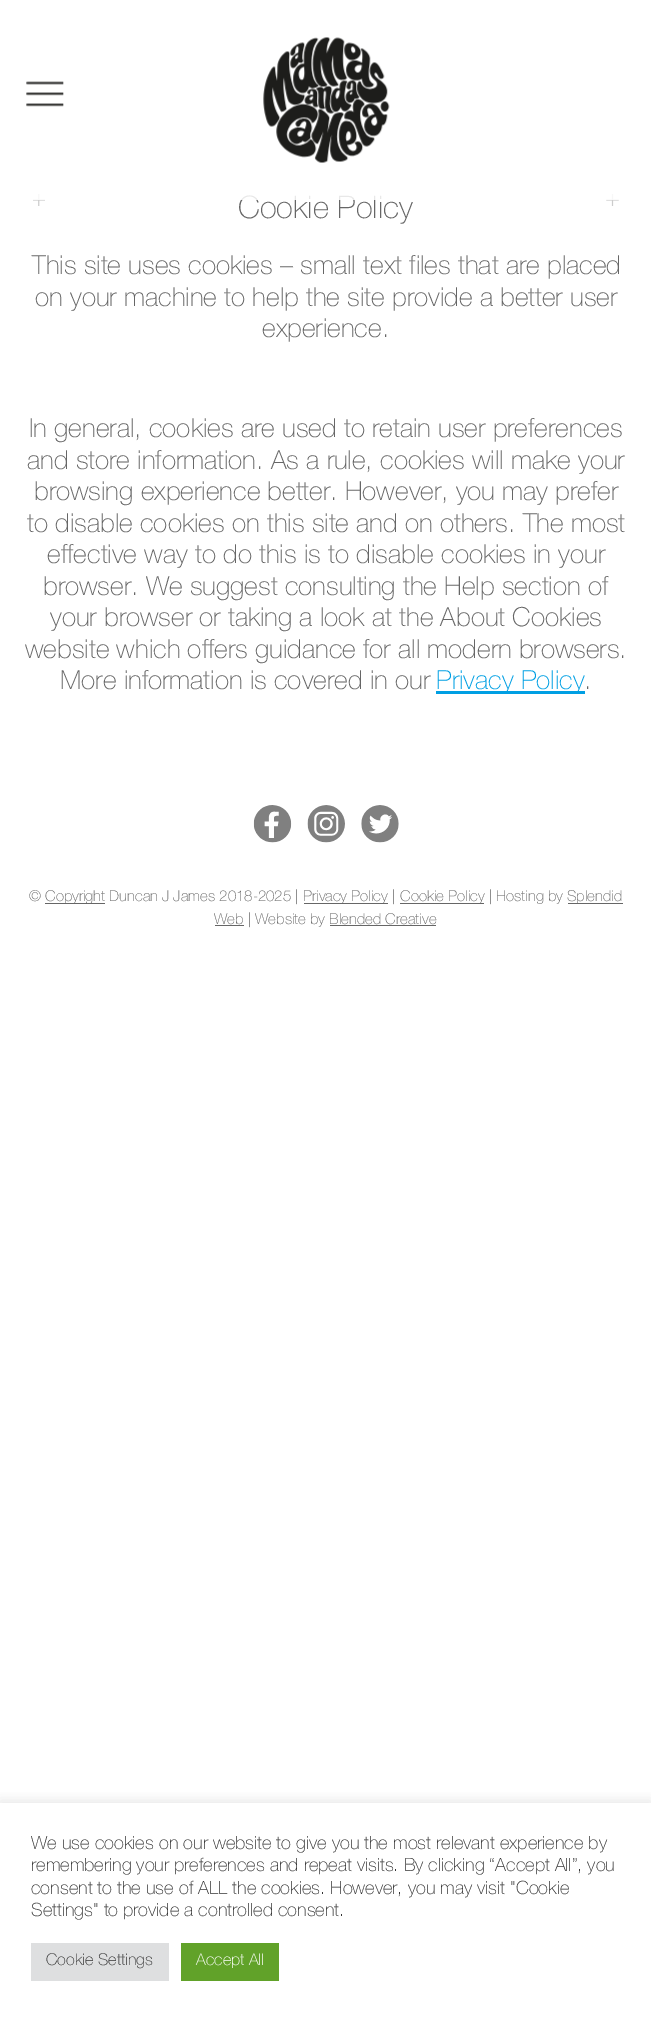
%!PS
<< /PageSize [651 2018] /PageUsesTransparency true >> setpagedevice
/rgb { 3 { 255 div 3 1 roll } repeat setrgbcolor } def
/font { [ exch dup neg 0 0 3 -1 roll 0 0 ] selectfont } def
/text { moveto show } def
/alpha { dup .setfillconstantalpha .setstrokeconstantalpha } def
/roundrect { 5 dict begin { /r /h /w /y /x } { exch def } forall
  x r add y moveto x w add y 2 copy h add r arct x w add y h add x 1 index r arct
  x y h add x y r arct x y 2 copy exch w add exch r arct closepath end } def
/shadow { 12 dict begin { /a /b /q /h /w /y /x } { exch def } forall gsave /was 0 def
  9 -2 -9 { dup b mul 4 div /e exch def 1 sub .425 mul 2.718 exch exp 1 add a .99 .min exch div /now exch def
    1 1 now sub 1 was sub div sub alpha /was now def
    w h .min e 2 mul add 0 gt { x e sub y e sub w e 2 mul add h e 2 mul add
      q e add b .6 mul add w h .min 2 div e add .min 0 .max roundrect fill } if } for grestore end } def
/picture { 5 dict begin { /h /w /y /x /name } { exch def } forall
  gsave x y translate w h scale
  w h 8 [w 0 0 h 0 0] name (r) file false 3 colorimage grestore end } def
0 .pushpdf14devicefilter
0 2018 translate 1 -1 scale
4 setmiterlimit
255 255 255 rgb
0 0 651 2018 rectfill
(img_01.rgb) 26 81 38 26 picture
(img_02.rgb) 263 37 127 126 picture
(img_03.rgb) 33 194 12 12 picture
(img_04.rgb) 606 194 13 12 picture
0 159 227 rgb
436 691 149 3 rectfill
(img_05.rgb) 253 805 39 38 picture
(img_06.rgb) 307 805 38 38 picture
(img_07.rgb) 361 805 38 38 picture
102 102 102 rgb
45 903 60 1 rectfill
304 903 84 1 rectfill
400 903 84 1 rectfill
568 903 55 1 rectfill
215 925 29 1 rectfill
330 925 106 1 rectfill
gsave
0 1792 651 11 rectclip
172 171 171 rgb
0 1801 651 217 0 6 0.3 shadow
grestore
222 223 224 rgb
31 1943 138 38 rectfill
97 162 41 rgb
181 1943 98 38 rectfill
/HelveticaNeue-ExtraLight 31 font
102 102 102 rgb
(Cookie Policy) 238 218 text
0.85 alpha
255 255 255 rgb
33 194 586 6 rectfill
/HelveticaNeue-ExtraLight 26.25 font
1 alpha
102 102 102 rgb
(This site uses cookies – small text files that are placed) 32 274 text
(on your machine to help the site provide a better user) 35 306 text
(experience.) 262 337 text
(In general, cookies are used to retain user preferences) 29 437 text
(and store information. As a rule, cookies will make your) 27 469 text
(browsing experience better. However, you may prefer) 34 500 text
(to disable cookies on this site and on others. The most) 27 532 text
(effective way to do this is to disable cookies in your) 47 563 text
(browser. We suggest consulting the Help section of) 43 595 text
(your browser or taking a look at the About Cookies) 50 626 text
(website which offers guidance for all modern browsers.) 25 658 text
(More information is covered in our) 60 689 text
0 159 227 rgb
(Privacy Policy) 436 689 text
102 102 102 rgb
(.) 584 689 text
/HelveticaNeue-ExtraLight 15 font
(©) 29 901 text
(Copyright Duncan J James 2018-2025 |) 45 901 text
(Privacy Policy |) 303 901 text
(Cookie Policy | Hosting by) 400 901 text
(Splendid) 567 901 text
(Web | Website by Blended Creative) 214 924 text
/HelveticaNeue-ExtraLight 18.3 font
51 51 51 rgb
(We use cookies on our website to give you the most relevant experience by) 31 1849 text
(remembering your preferences and repeat visits. By clicking “Accept All”, you) 31 1871 text
(consent to the use of ALL the cookies. However, you may visit "Cookie) 31 1894 text
(Settings" to provide a controlled consent.) 31 1916 text
/HelveticaNeue-ExtraLight 16.25 font
(Cookie Settings) 46 1965 text
255 255 255 rgb
(Accept All) 196 1965 text
.poppdf14devicefilter showpage
